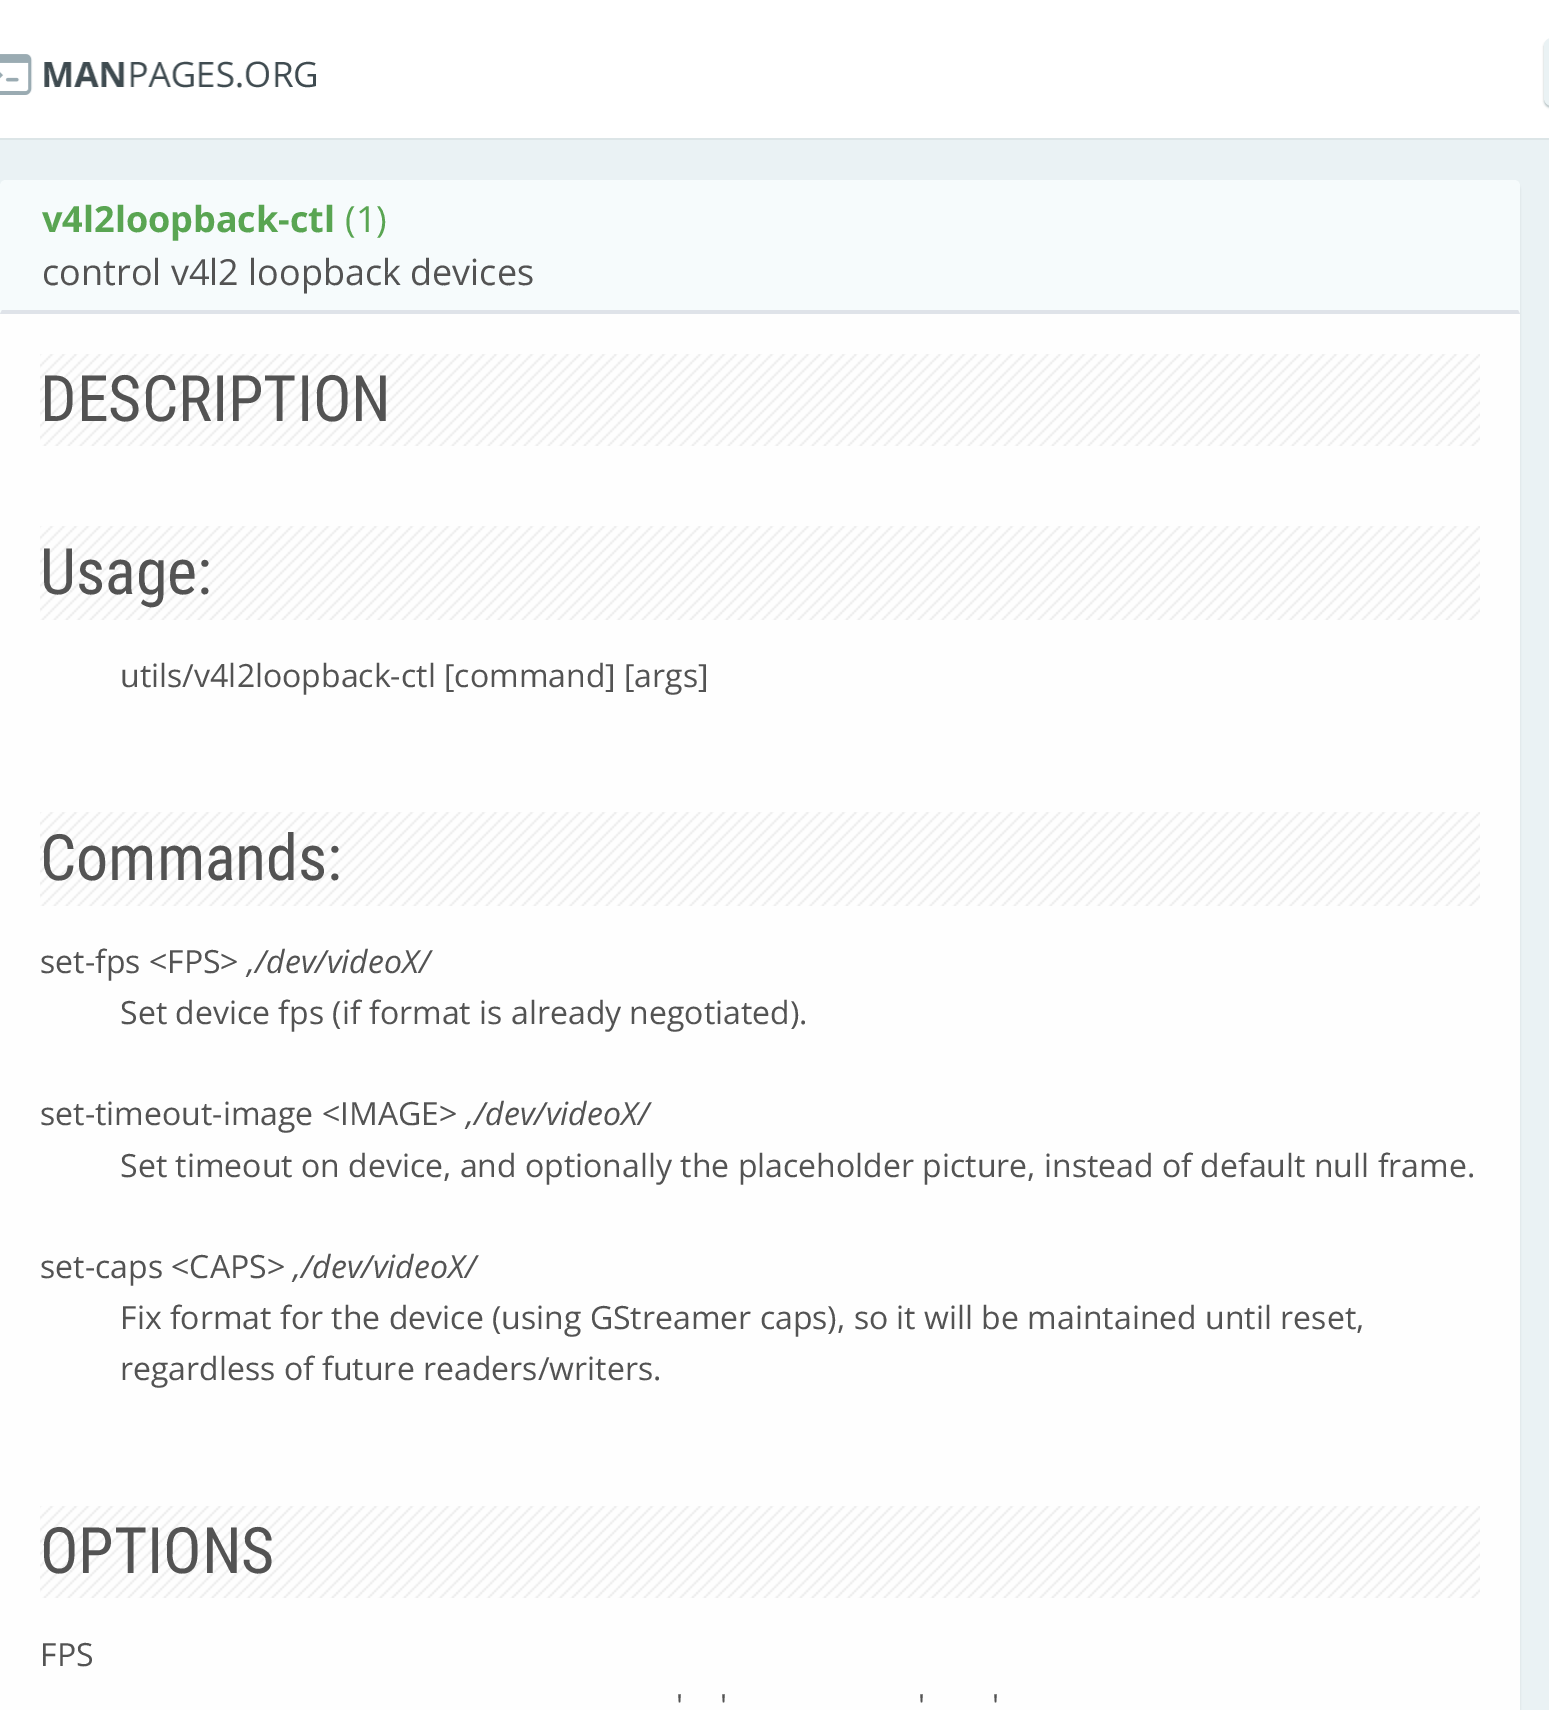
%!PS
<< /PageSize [1549 1710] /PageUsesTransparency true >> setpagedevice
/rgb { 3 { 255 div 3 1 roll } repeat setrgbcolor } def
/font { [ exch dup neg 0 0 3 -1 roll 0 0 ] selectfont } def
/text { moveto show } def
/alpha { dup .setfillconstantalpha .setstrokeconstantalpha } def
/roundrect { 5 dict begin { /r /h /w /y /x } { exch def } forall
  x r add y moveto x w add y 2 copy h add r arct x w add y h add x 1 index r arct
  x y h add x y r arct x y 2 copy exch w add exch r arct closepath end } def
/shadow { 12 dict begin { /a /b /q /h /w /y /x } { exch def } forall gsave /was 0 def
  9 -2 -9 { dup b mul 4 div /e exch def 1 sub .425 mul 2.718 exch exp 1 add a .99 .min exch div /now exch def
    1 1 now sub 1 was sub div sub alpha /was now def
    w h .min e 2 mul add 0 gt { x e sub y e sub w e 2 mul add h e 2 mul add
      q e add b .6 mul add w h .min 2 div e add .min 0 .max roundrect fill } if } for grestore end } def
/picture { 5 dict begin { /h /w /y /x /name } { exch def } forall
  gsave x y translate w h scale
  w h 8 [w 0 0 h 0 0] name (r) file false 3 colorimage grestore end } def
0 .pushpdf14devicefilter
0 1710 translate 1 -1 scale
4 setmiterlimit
234 242 244 rgb
0 0 1549 1710 rectfill
255 255 255 rgb
0 0 1549 138 rectfill
220 229 231 rgb
0 138 1549 2 rectfill
(img_01.rgb) 0 54 316 41 picture
6 47 55 rgb
1544 40 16 68 8 1 0.3 shadow
234 242 244 rgb
1544 38 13 68 8 roundrect fill
0 0 0 rgb
0 182 1520 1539 8 1 0.1 shadow
254 254 254 rgb
8 180 moveto 1504 0 rlineto 4.5 0 8 3.5 8 8 rcurveto 0 1522 rlineto -1520 0 rlineto 0 -1522 rlineto 0 -4.5 3.5 -8 8 -8 rcurveto closepath fill
246 251 252 rgb
6 180 moveto 1508 0 rlineto 3.5 0 6 2.5 6 6 rcurveto 0 128 rlineto -1520 0 rlineto 0 -128 rlineto 0 -3.5 2.5 -6 6 -6 rcurveto closepath fill
223 227 233 rgb
1520 314 moveto -2 -4 rlineto -1516 0 rlineto -2 4 rlineto closepath fill
(img_02.rgb) 40 354 1440 92 picture
(img_03.rgb) 40 526 1440 94 picture
(img_03.rgb) 40 812 1440 94 picture
(img_04.rgb) 40 1506 1440 92 picture
/OpenSans-Bold 36 font
89 165 82 rgb
(v4l2loopback-ctl) 42 232 text
/OpenSans-Regular 36 font
(\(1\)) 345 232 text
83 83 83 rgb
(control v4l2 loopback devices) 42 285 text
/RobotoCondensed-Regular 64 font
(DESCRIPTION) 40 421 text
(Usage:) 40 594 text
/OpenSans-Regular 32 font
(utils/v4l2loopback-ctl [command] [args]) 120 687 text
/RobotoCondensed-Regular 64 font
(Commands:) 40 880 text
/OpenSans-Regular 32 font
(set-fps <FPS>) 40 973 text
/OpenSans-Italic 32 font
(,/dev/videoX/) 247 973 text
/OpenSans-Regular 32 font
(Set device fps \(if format is already negotiated\).) 120 1024 text
(set-timeout-image <IMAGE>) 40 1125 text
/OpenSans-Italic 32 font
(,/dev/videoX/) 466 1125 text
/OpenSans-Regular 32 font
(Set timeout on device, and optionally the placeholder picture, instead of default null frame.) 120 1177 text
(set-caps <CAPS>) 40 1278 text
/OpenSans-Italic 32 font
(,/dev/videoX/) 293 1278 text
/OpenSans-Regular 32 font
(Fix format for the device \(using GStreamer caps\), so it will be maintained until reset,) 120 1329 text
(regardless of future readers/writers.) 120 1380 text
/RobotoCondensed-Regular 64 font
(OPTIONS) 40 1573 text
/OpenSans-Regular 32 font
(FPS) 40 1666 text
(') 676 1717 text
(') 720 1717 text
(') 918 1717 text
(') 992 1717 text
.poppdf14devicefilter showpage
